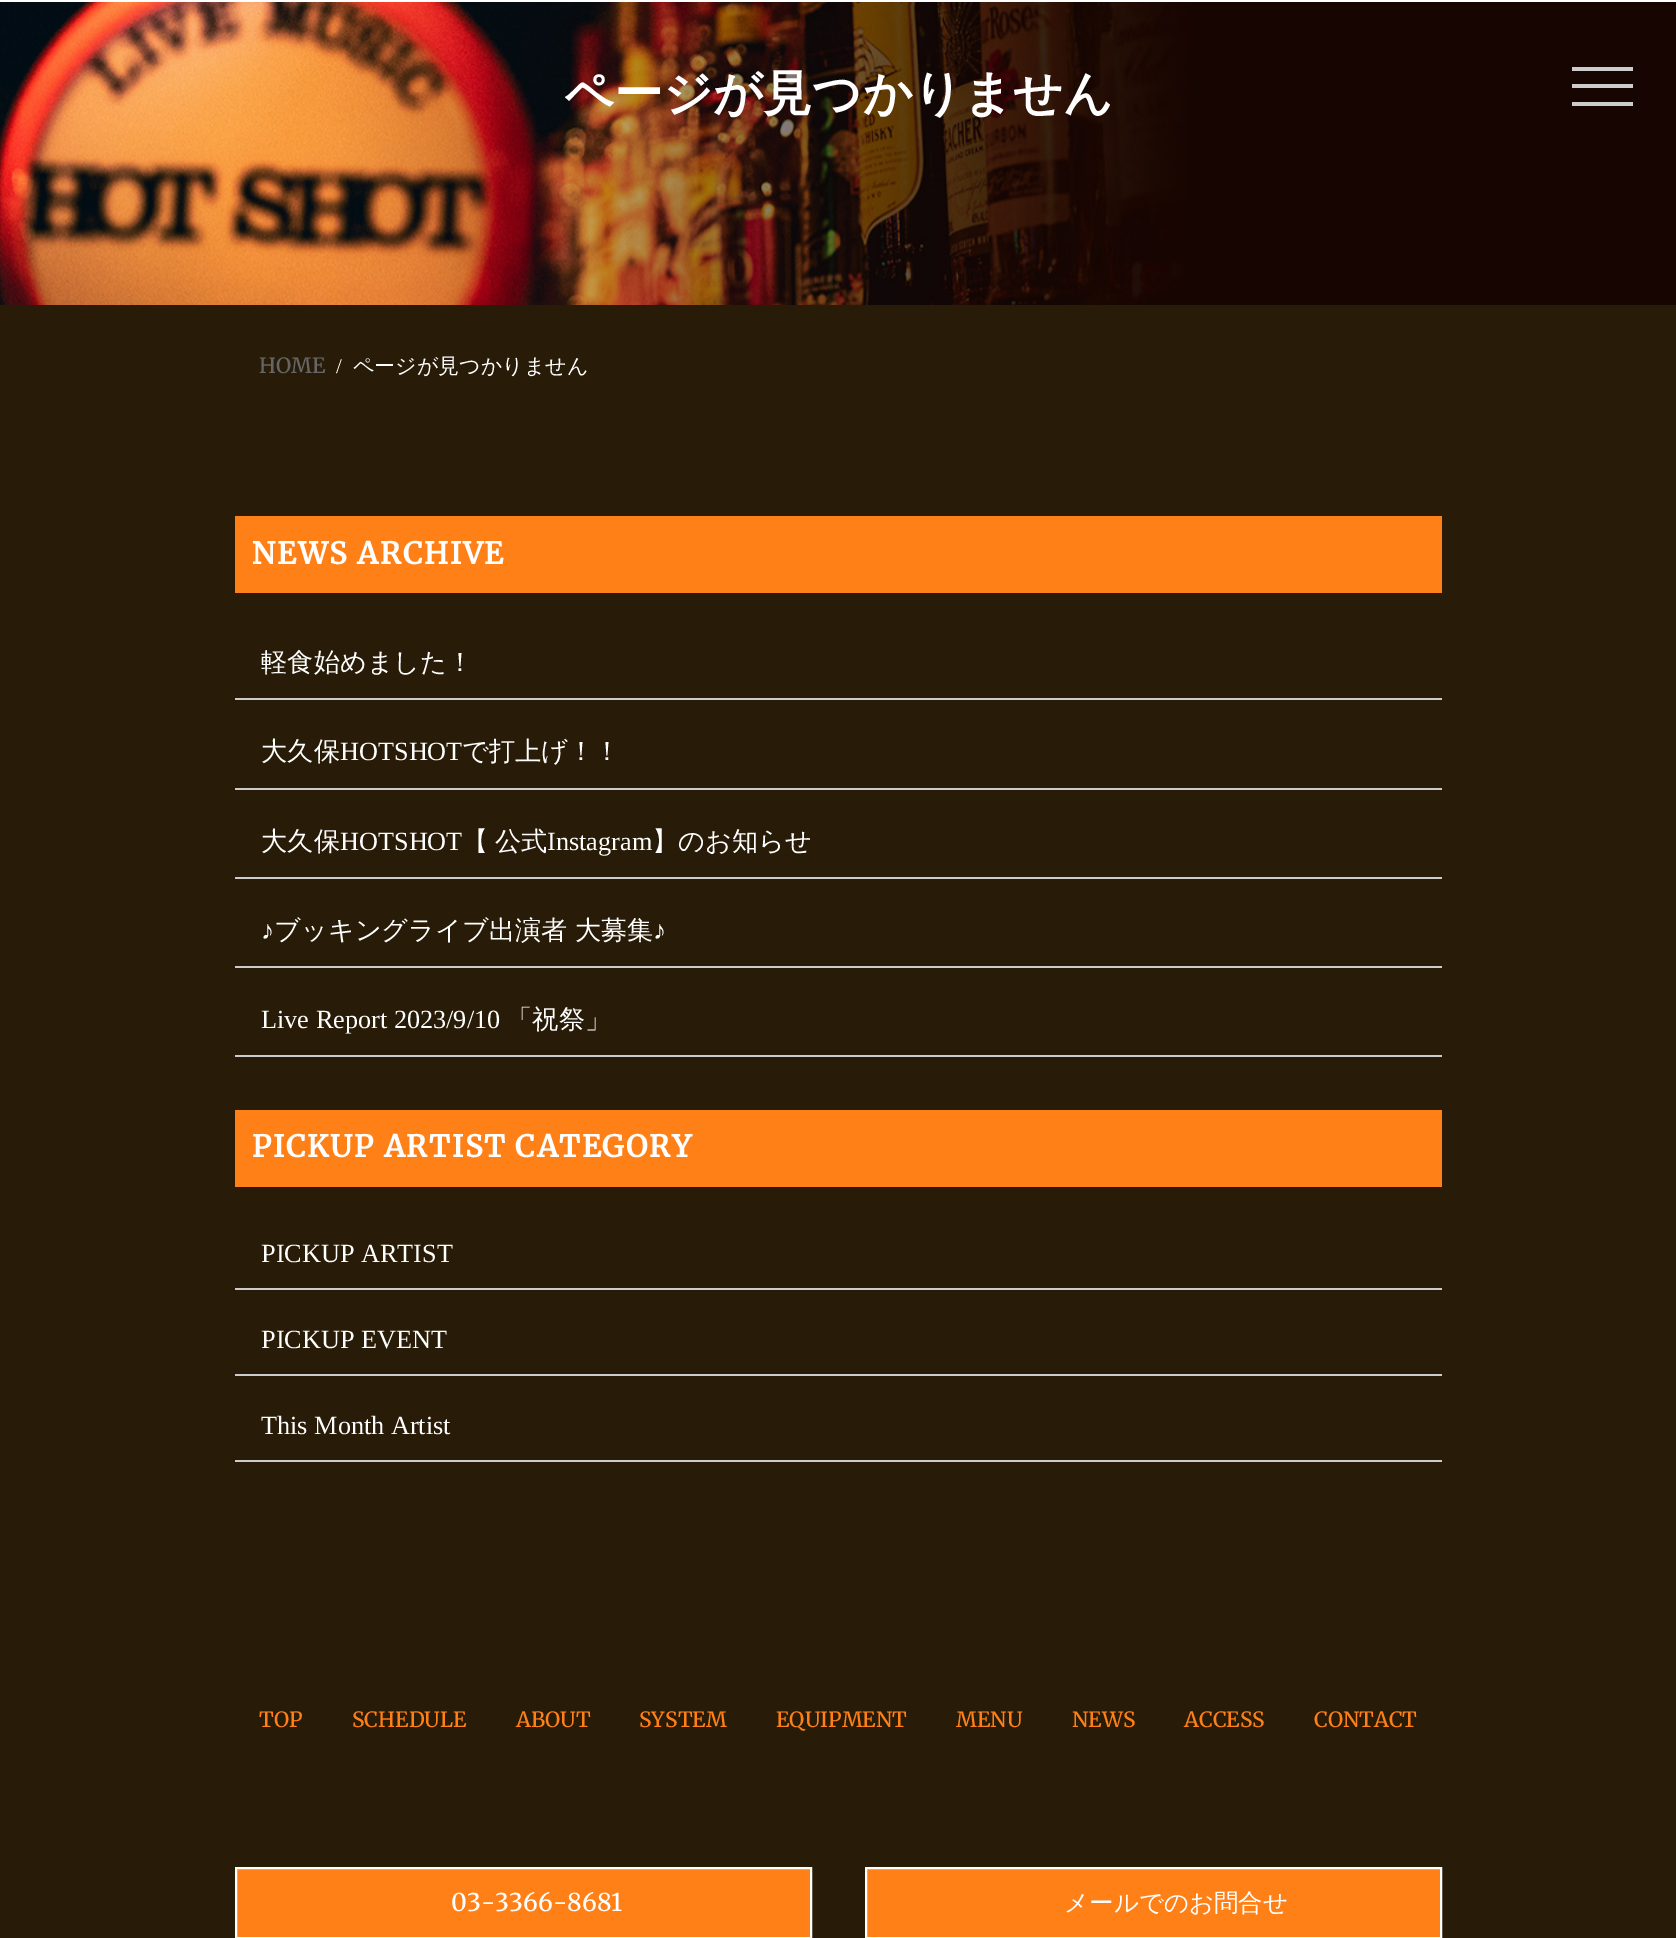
%!PS
<< /PageSize [1676 1938] >> setpagedevice
/rgb { 3 { 255 div 3 1 roll } repeat setrgbcolor } def
/font { [ exch dup neg 0 0 3 -1 roll 0 0 ] selectfont } def
/text { moveto show } def
/picture { 5 dict begin { /h /w /y /x /name } { exch def } forall
  gsave x y translate w h scale
  w h 8 [w 0 0 h 0 0] name (r) file false 3 colorimage grestore end } def
0 1938 translate 1 -1 scale
4 setmiterlimit
40 27 7 rgb
0 0 1676 1938 rectfill
255 255 255 rgb
0 0 1676 2 rectfill
(img_01.rgb) 0 2 1676 303 picture
204 204 204 rgb
1572 67 61 4 rectfill
1572 84 61 4 rectfill
1572 102 61 4 rectfill
255 128 22 rgb
235 516 1207 77 rectfill
204 204 204 rgb
235 698 1207 2 rectfill
235 788 1207 2 rectfill
235 877 1207 2 rectfill
235 966 1207 2 rectfill
235 1055 1207 2 rectfill
255 128 22 rgb
235 1110 1207 77 rectfill
204 204 204 rgb
235 1288 1207 2 rectfill
235 1374 1207 2 rectfill
235 1460 1207 2 rectfill
255 128 22 rgb
236 1868 moveto 575 0 rlineto 0 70 rlineto -575 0 rlineto closepath gsave fill grestore
255 255 255 rgb
2 setlinewidth
stroke
255 128 22 rgb
866 1868 moveto 575 0 rlineto 0 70 rlineto -575 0 rlineto closepath gsave fill grestore
255 255 255 rgb
stroke
/WenQuanYiZenHei-Bold 49 font
(ページが見つかりません) 564 110 text
/Merriweather-Light 21 font
102 102 102 rgb
(HOME) 259 373 text
/LiberationSerif-Regular 21 font
255 255 255 rgb
(/) 336 373 text
/WenQuanYiZenHei-Medium 21 font
(ページが見つかりません) 353 373 text
/Merriweather-Bold 29.75 font
252 564 moveto 1.75 0 (NEWS ARCHIVE) ashow
/WenQuanYiZenHei-Medium 26.25 font
(軽食始めました！) 261 671 text
(大久保) 261 760 text
/LiberationSerif-Regular 26.25 font
(HOTSHOT) 340 760 text
/WenQuanYiZenHei-Medium 26.25 font
(で打上げ！！) 462 760 text
(大久保) 261 850 text
/LiberationSerif-Regular 26.25 font
(HOTSHOT) 340 850 text
/WenQuanYiZenHei-Medium 26.25 font
462 850 moveto -1 0 32 (【 公式) widthshow
/LiberationSerif-Regular 26.25 font
(Instagram) 547 850 text
/WenQuanYiZenHei-Medium 26.25 font
(】のお知らせ) 652 850 text
/LiberationSerif-Regular 26.25 font
(♪) 261 939 text
/WenQuanYiZenHei-Medium 26.25 font
274 939 moveto -1 0 32 (ブッキングライブ出演者 大募集) widthshow
/LiberationSerif-Regular 26.25 font
(♪) 653 939 text
(Live Report 2023/9/10) 261 1028 text
/WenQuanYiZenHei-Medium 26.25 font
(「祝祭」) 506 1028 text
/Merriweather-Bold 29.75 font
252 1157 moveto 1.75 0 (PICKUP ARTIST CATEGORY) ashow
/LiberationSerif-Regular 26.25 font
(PICKUP ARTIST) 261 1262 text
(PICKUP EVENT) 261 1348 text
(This Month Artist) 261 1434 text
/Merriweather-Light 21 font
255 128 22 rgb
(TOP) 259 1727 text
(SCHEDULE) 352 1727 text
(ABOUT) 516 1727 text
(SYSTEM) 639 1727 text
(EQUIPMENT) 776 1727 text
(MENU) 956 1727 text
(NEWS) 1072 1727 text
(ACCESS) 1184 1727 text
(CONTACT) 1314 1727 text
/Merriweather-Light 24.5 font
255 255 255 rgb
(03-3366-8681) 451 1911 text
/WenQuanYiZenHei-Medium 24.5 font
(メールでのお問合せ) 1064 1911 text
showpage
